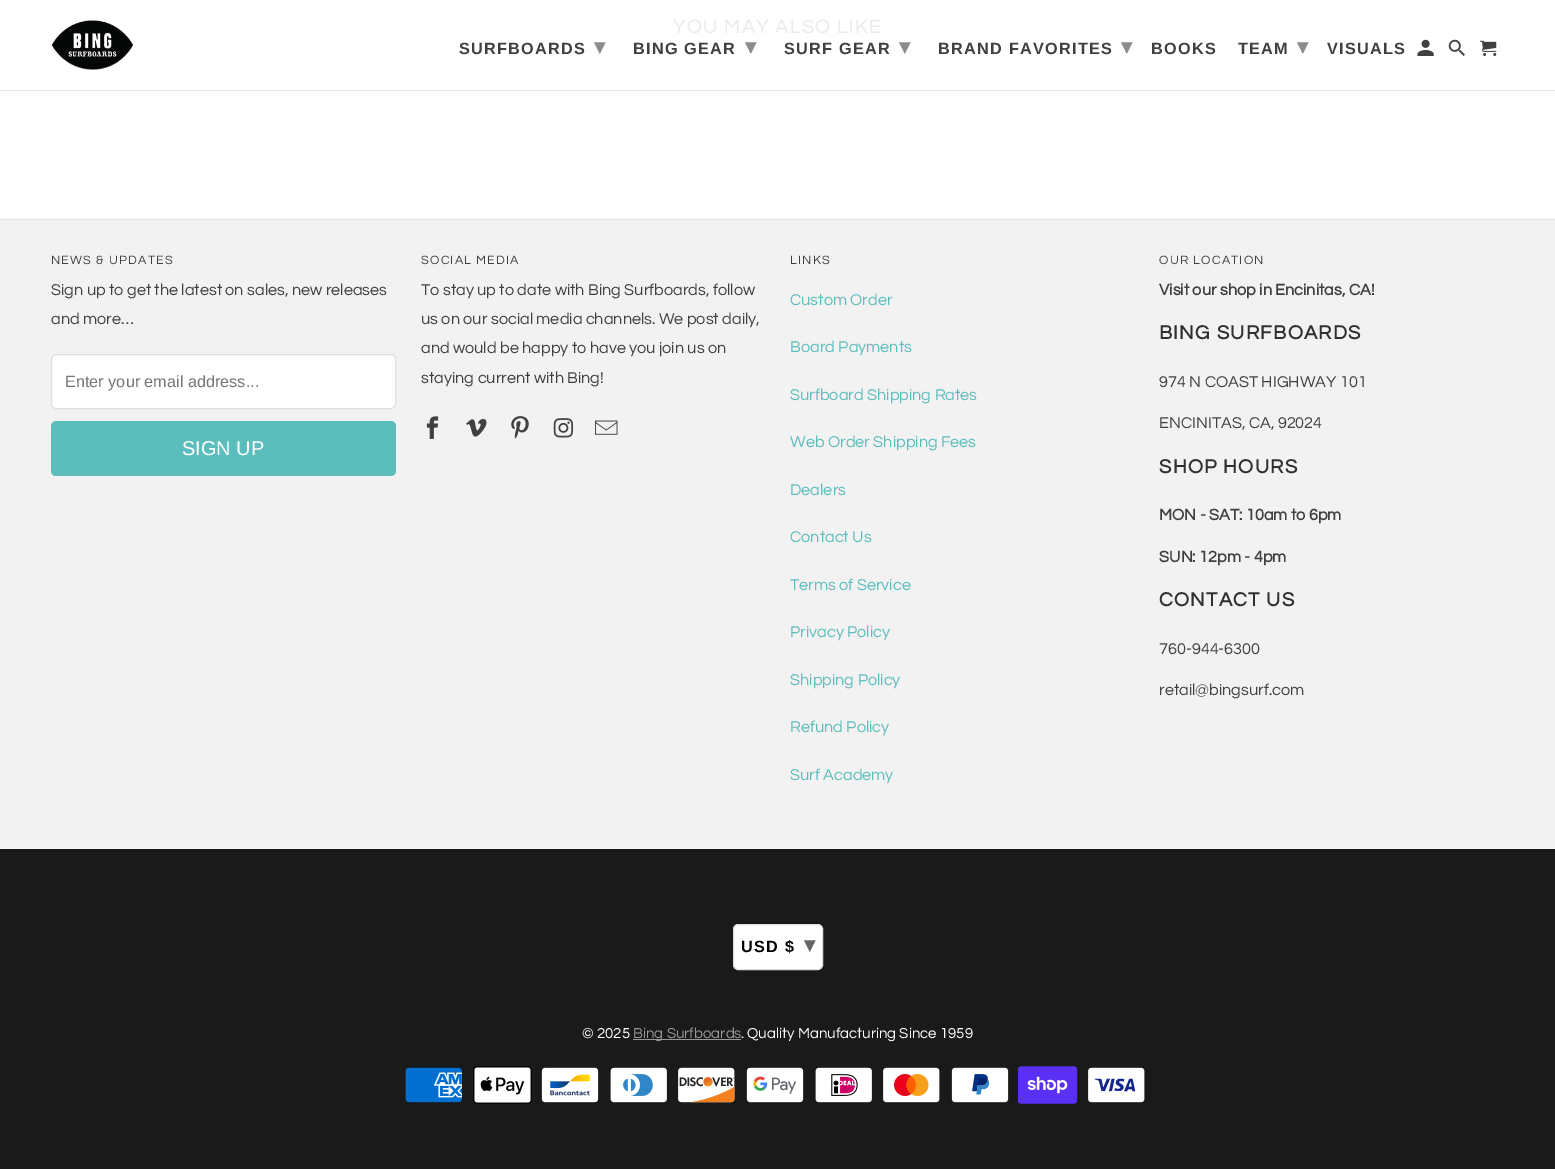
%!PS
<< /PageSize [1555 1169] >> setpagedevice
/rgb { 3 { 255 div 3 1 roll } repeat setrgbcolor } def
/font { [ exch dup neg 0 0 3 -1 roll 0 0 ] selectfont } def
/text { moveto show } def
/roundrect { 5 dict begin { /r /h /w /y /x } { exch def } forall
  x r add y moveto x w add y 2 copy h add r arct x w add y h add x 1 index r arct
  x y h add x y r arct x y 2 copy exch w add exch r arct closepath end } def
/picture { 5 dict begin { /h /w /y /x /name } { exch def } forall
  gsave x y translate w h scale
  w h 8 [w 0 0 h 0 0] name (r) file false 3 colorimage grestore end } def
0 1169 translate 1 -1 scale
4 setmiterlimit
255 255 255 rgb
0 0 1555 1169 rectfill
252 252 252 rgb
51 1 1453 1 rectfill
51 50 1453 1 rectfill
242 242 242 rgb
0 220 1555 629 rectfill
225 225 225 rgb
0 219 1555 1 rectfill
255 255 255 rgb
51.5 354.5 344 54 4.5 roundrect gsave fill grestore
220 224 224 rgb
stroke
92 189 189 rgb
51 421 345 55 5 roundrect fill
(img_01.rgb) 426 416 13 23 picture
(img_02.rgb) 466 419 21 18 picture
(img_03.rgb) 511 416 18 23 picture
(img_04.rgb) 553 418 21 20 picture
(img_05.rgb) 595 420 23 15 picture
26 26 26 rgb
0 849 1555 320 rectfill
255 255 255 rgb
733.5 924.5 89 45 4.5 roundrect gsave fill grestore
220 224 224 rgb
stroke
153 153 153 rgb
633 1039 108 1 rectfill
(img_06.rgb) 405 1067 57 36 picture
(img_07.rgb) 473 1066 59 38 picture
(img_08.rgb) 541 1067 58 36 picture
(img_09.rgb) 610 1067 57 36 picture
(img_10.rgb) 678 1067 57 36 picture
(img_11.rgb) 746 1067 58 36 picture
(img_12.rgb) 815 1067 57 36 picture
(img_13.rgb) 883 1067 57 36 picture
(img_14.rgb) 951 1067 58 36 picture
(img_15.rgb) 1018 1066 60 38 picture
(img_16.rgb) 1088 1067 57 36 picture
230 230 230 rgb
0 90 1555 1 rectfill
(img_17.rgb) 52 20 81 50 picture
(img_18.rgb) 1417 39 17 17 picture
(img_19.rgb) 1448 39 17 17 picture
(img_20.rgb) 1480 40 17 16 picture
/Questrial-Regular 20 font
234 234 234 rgb
673 33 moveto 1.25 0 (YOU MAY ALSO LIKE) ashow
/Questrial-Regular 12.5 font
64 64 64 rgb
51 264 moveto 1.25 0 (NEWS & UPDATES) ashow
/Questrial-Regular 16.25 font
(Sign up to get the latest on sales, new releases) 51 295 text
(and more…) 51 324 text
/LiberationSans-Regular 16.25 font
117 117 117 rgb
(Enter your email address...) 65 387 text
/LiberationSans-Regular 20 font
255 255 255 rgb
(SIGN UP) 182 455 text
/Questrial-Regular 12.5 font
64 64 64 rgb
421 264 moveto 1.25 0 (SOCIAL MEDIA) ashow
/Questrial-Regular 16.25 font
(To stay up to date with Bing Surfboards, follow) 421 295 text
(us on our social media channels. We post daily,) 421 324 text
(and would be happy to have you join us on) 421 353 text
(staying current with Bing!) 421 383 text
/Questrial-Regular 12.5 font
790 264 moveto 1.25 0 (LINKS) ashow
/Questrial-Regular 16.25 font
92 189 189 rgb
(Custom Order) 790 305 text
(Board Payments) 790 352 text
(Surfboard Shipping Rates) 790 400 text
(Web Order Shipping Fees) 790 447 text
(Dealers) 790 495 text
(Contact Us) 790 542 text
(Terms of Service) 790 590 text
(Privacy Policy) 790 637 text
(Shipping Policy) 790 685 text
(Refund Policy) 790 732 text
(Surf Academy) 790 780 text
/Questrial-Regular 12.5 font
64 64 64 rgb
1159 264 moveto 1.25 0 (OUR LOCATION) ashow
/Questrial-Bold 16.25 font
(Visit our shop in Encinitas, CA!) 1159 295 text
/Questrial-Bold 20 font
48 48 48 rgb
1159 339 moveto 1.25 0 (BING SURFBOARDS) ashow
/Questrial-Regular 16.25 font
64 64 64 rgb
(974 N COAST HIGHWAY 101) 1159 387 text
(ENCINITAS, CA, 92024) 1159 428 text
/Questrial-Bold 20 font
48 48 48 rgb
1159 473 moveto 1.25 0 (SHOP HOURS) ashow
/Questrial-Bold 16.25 font
64 64 64 rgb
(MON - SAT: 10am to 6pm) 1159 520 text
(SUN: 12pm - 4pm) 1159 562 text
/Questrial-Bold 20 font
48 48 48 rgb
1159 606 moveto 1.25 0 (CONTACT US) ashow
/Questrial-Regular 16.25 font
64 64 64 rgb
(760-944-6300) 1159 654 text
(retail@bingsurf.com) 1159 695 text
/LiberationSans-Bold 16.25 font
0 0 0 rgb
741 952 moveto 1.25 0 (USD $) ashow
/DejaVuSans-Bold 22 font
102 102 102 rgb
804 952 moveto 1.25 0 (▾) ashow
/Questrial-Regular 15 font
255 255 255 rgb
(© 2025) 582 1038 text
153 153 153 rgb
(Bing Surfboards) 633 1038 text
255 255 255 rgb
(. Quality Manufacturing Since 1959) 741 1038 text
/LiberationSans-Bold 16.25 font
64 64 64 rgb
459 54 moveto 1.25 0 (SURFBOARDS) ashow
/DejaVuSans-Bold 22 font
140 140 140 rgb
594 54 moveto 1.25 0 (▾) ashow
/LiberationSans-Bold 16.25 font
64 64 64 rgb
633 54 moveto 1.25 0 (BING GEAR) ashow
/DejaVuSans-Bold 22 font
140 140 140 rgb
745 54 moveto 1.25 0 (▾) ashow
/LiberationSans-Bold 16.25 font
64 64 64 rgb
784 54 moveto 1.25 0 (SURF GEAR) ashow
/DejaVuSans-Bold 22 font
140 140 140 rgb
899 54 moveto 1.25 0 (▾) ashow
/LiberationSans-Bold 16.25 font
64 64 64 rgb
938 54 moveto 1.25 0 (BRAND FAVORITES) ashow
/DejaVuSans-Bold 22 font
140 140 140 rgb
1121 54 moveto 1.25 0 (▾) ashow
/LiberationSans-Bold 16.25 font
64 64 64 rgb
1151 54 moveto 1.25 0 (BOOKS) ashow
1238 54 moveto 1.25 0 (TEAM) ashow
/DejaVuSans-Bold 22 font
140 140 140 rgb
1297 54 moveto 1.25 0 (▾) ashow
/LiberationSans-Bold 16.25 font
64 64 64 rgb
1327 54 moveto 1.25 0 (VISUALS) ashow
showpage
